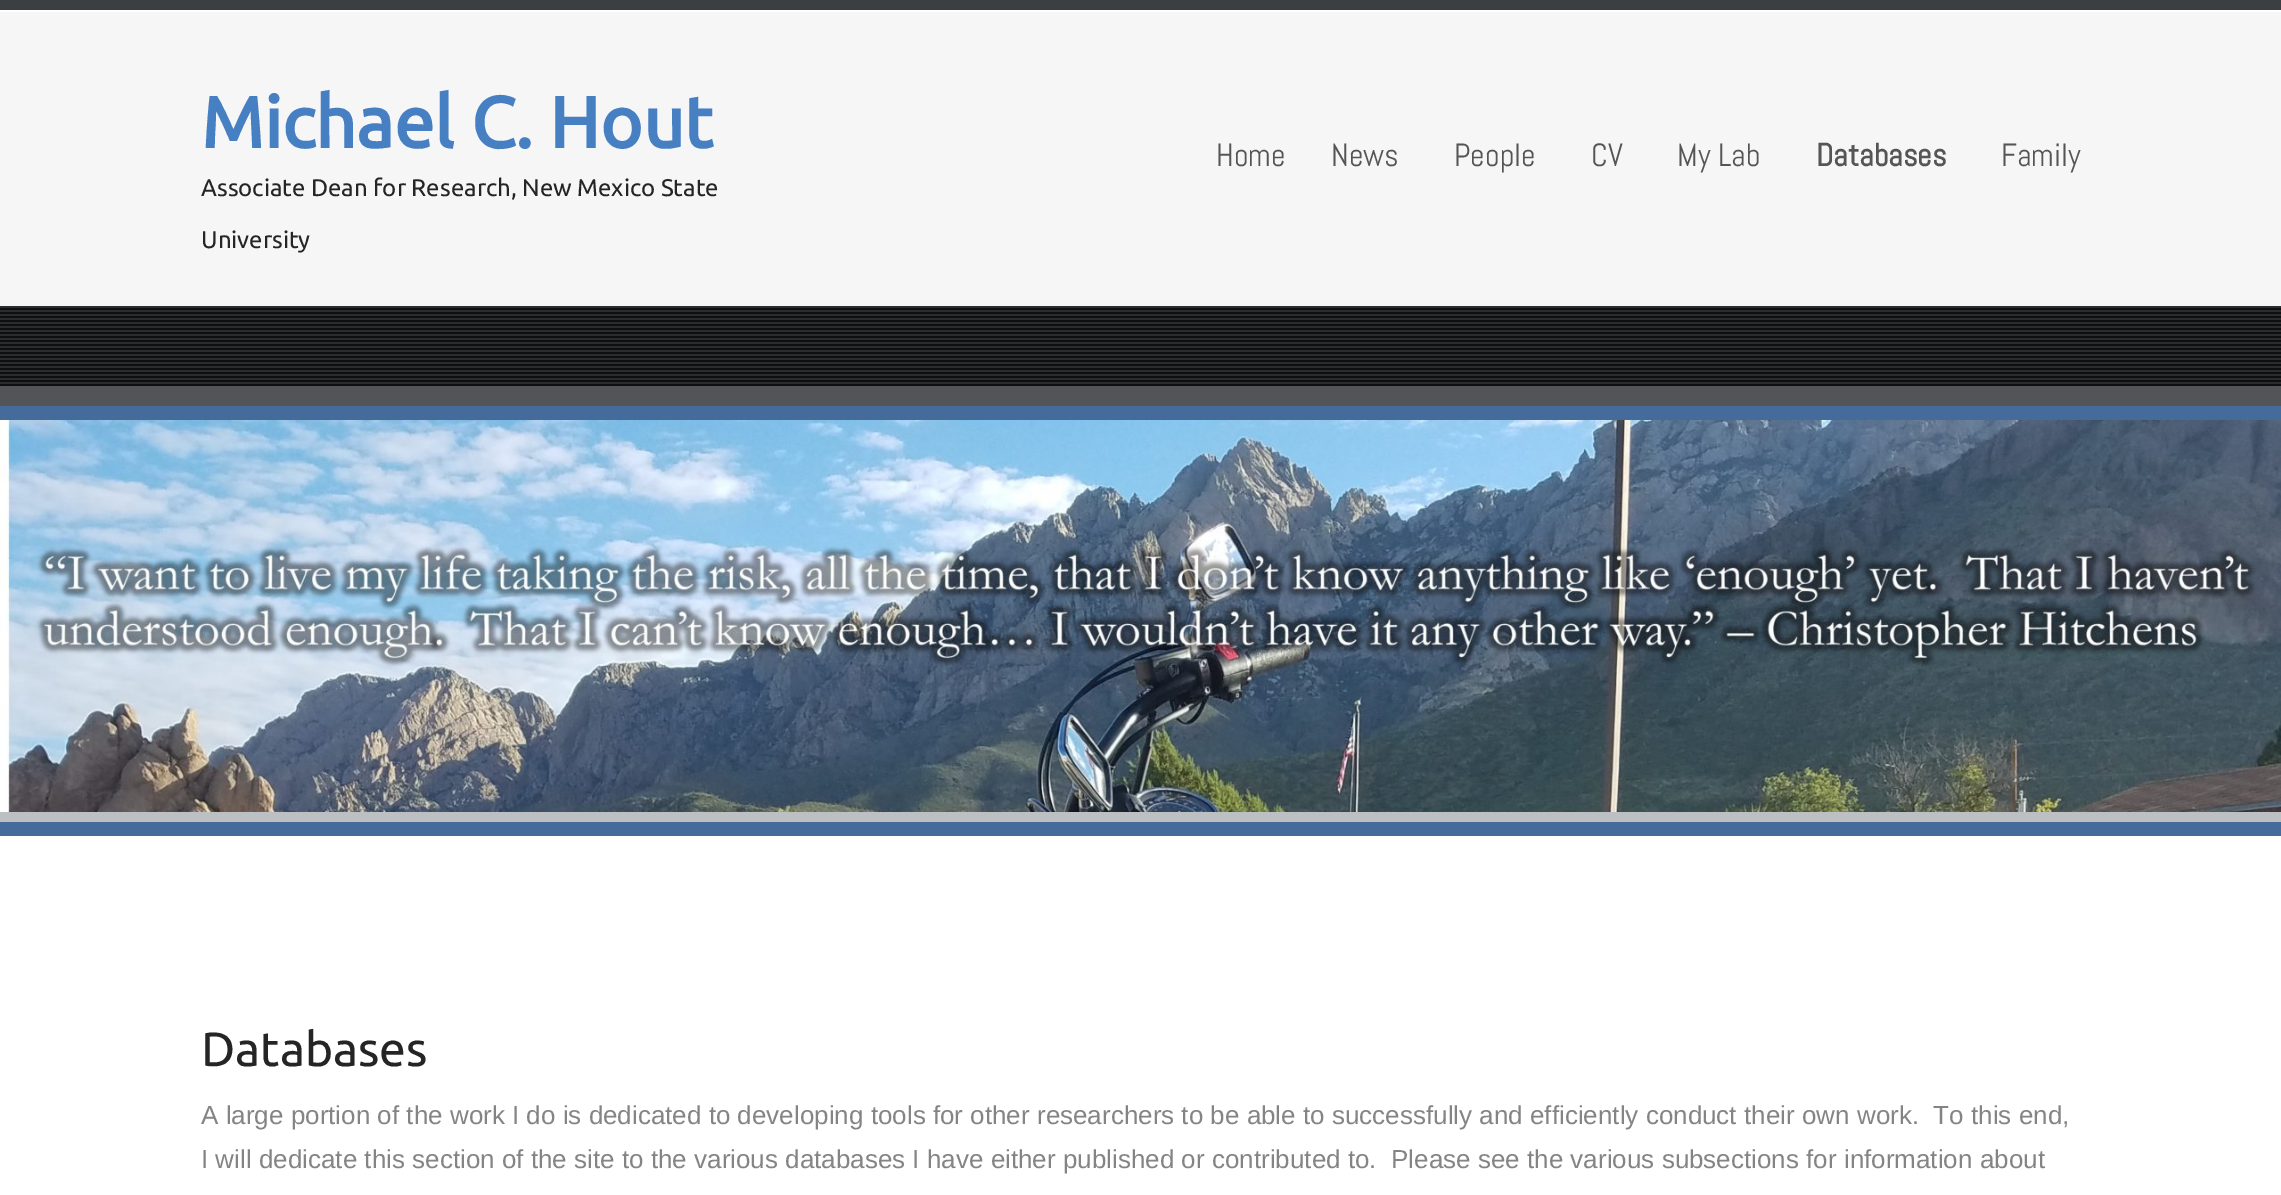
%!PS
<< /PageSize [2281 1195] >> setpagedevice
/rgb { 3 { 255 div 3 1 roll } repeat setrgbcolor } def
/font { [ exch dup neg 0 0 3 -1 roll 0 0 ] selectfont } def
/text { moveto show } def
/picture { 5 dict begin { /h /w /y /x /name } { exch def } forall
  gsave x y translate w h scale
  w h 8 [w 0 0 h 0 0] name (r) file false 3 colorimage grestore end } def
0 1195 translate 1 -1 scale
4 setmiterlimit
255 255 255 rgb
0 0 2281 1195 rectfill
60 63 65 rgb
0 0 2281 10 rectfill
246 246 246 rgb
0 12 2281 294 rectfill
57 60 63 rgb
0 306 2281 80 rectfill
(img_01.rgb) 0 306 2281 80 picture
68 107 154 rgb
0 406 2281 430 rectfill
82 84 88 rgb
0 386 2281 20 rectfill
188 192 195 rgb
0 812 2281 10 rectfill
(img_02.rgb) 0 420 2281 392 picture
/Ubuntu-Bold 72 font
70 127 194 rgb
(Michael C. Hout) 201 148 text
/Ubuntu-Regular 24 font
37 37 37 rgb
(Associate Dean for Research, New Mexico State) 201 196 text
(University) 201 248 text
/Abel-Regular 32 font
85 85 85 rgb
(Home) 1216 166 text
(News) 1331 166 text
(People) 1454 166 text
(CV) 1591 166 text
(My Lab) 1677 166 text
/Abel-Bold 32 font
(Databases) 1816 166 text
/Abel-Regular 32 font
(Family) 2001 166 text
/Ubuntu-Regular 48 font
37 37 37 rgb
(Databases) 201 1066 text
/LiberationSans-Regular 26.02 font
132 132 132 rgb
(A large portion of the work I do is dedicated to developing tools for other researchers to be able to successfully and efficiently conduct their own work.  To this end,) 201 1124 text
(I will dedicate this section of the site to the various databases I have either published or contributed to.  Please see the various subsections for information about) 201 1168 text
showpage
